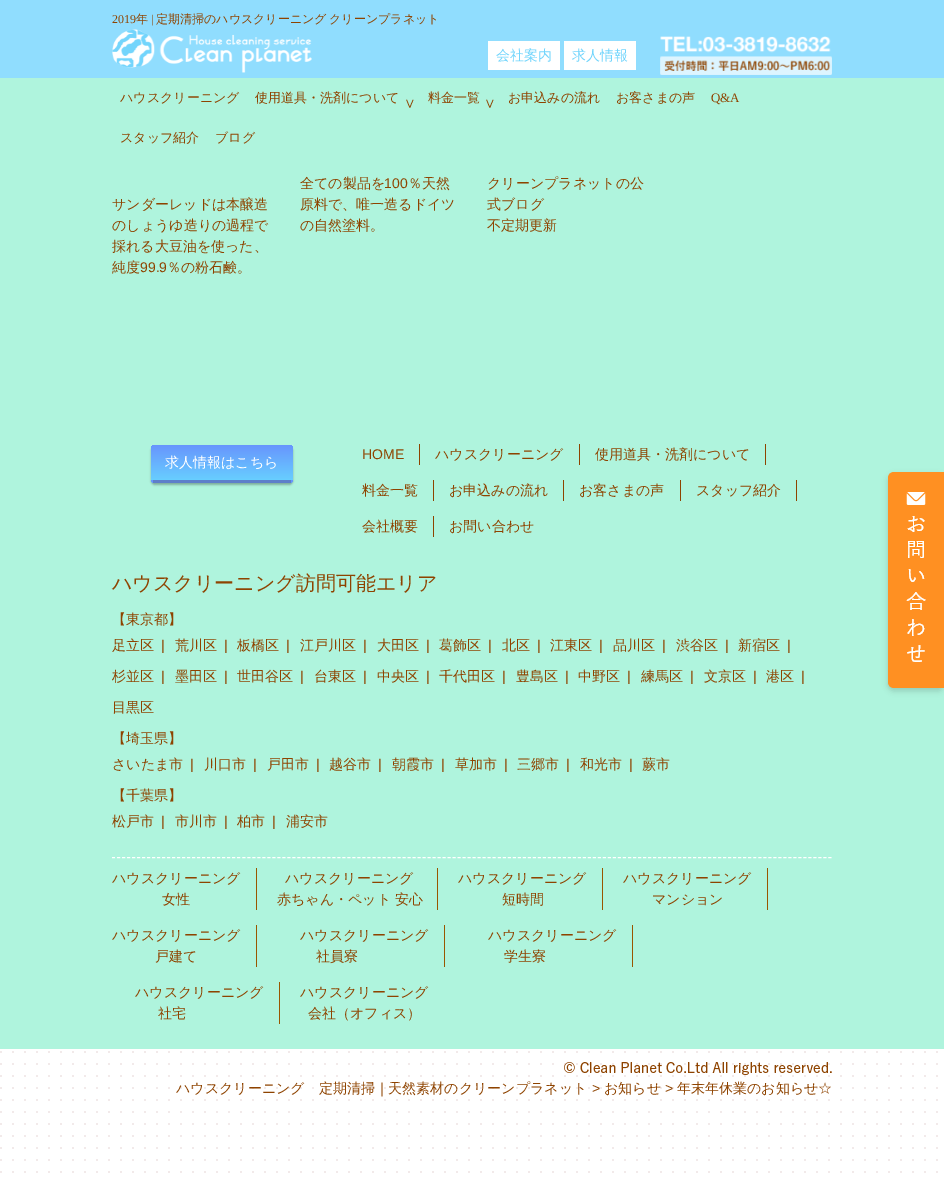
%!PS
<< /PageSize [944 1180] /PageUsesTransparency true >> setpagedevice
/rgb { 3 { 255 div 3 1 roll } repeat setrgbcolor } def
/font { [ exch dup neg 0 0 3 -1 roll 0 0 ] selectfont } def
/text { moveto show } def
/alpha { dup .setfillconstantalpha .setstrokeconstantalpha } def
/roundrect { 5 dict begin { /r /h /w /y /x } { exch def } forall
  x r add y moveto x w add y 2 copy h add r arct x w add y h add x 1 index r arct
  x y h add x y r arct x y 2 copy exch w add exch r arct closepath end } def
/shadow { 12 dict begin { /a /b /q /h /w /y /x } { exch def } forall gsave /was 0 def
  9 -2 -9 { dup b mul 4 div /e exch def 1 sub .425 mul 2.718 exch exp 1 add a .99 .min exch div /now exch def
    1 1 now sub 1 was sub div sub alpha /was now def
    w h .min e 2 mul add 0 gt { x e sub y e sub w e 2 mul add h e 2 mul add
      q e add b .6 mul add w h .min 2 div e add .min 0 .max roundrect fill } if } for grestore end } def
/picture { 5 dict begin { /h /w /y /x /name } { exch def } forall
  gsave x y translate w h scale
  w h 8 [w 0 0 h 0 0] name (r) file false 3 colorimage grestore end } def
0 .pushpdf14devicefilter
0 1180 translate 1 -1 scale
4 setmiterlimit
255 255 255 rgb
0 0 944 1180 rectfill
(img_01.rgb) 0 1051 938 122 picture
144 221 254 rgb
0 0 944 78 rectfill
(img_02.rgb) 112 29 200 44 picture
255 255 255 rgb
488 41 72 29 rectfill
564 41 72 29 rectfill
(img_03.rgb) 660 36 172 39 picture
175 244 221 rgb
0 78 944 971 rectfill
0 0 0 rgb
151 447 142 38 4 1 0.29 shadow
gsave
151 445 142 38 4 roundrect clip newpath
gsave 155 445 moveto 134 0 rlineto 2 0 4 2 4 4 rcurveto 0 31 rlineto -142 0 rlineto 0 -31 rlineto 0 -2 2 -4 4 -4 rcurveto closepath clip newpath
<< /ShadingType 2 /ColorSpace /DeviceRGB /Coords [222 445 222 480] /Extend [true true] /Function << /FunctionType 2 /Domain [0 1] /C0 [0.404 0.584 0.992] /C1 [0.404 0.808 1] /N 1 >> >> shfill grestore
gsave 151 480 moveto 142 0 rlineto 0 3 rlineto -142 0 rlineto closepath clip newpath
<< /ShadingType 2 /ColorSpace /DeviceRGB /Coords [222 480 222 515] /Extend [true true] /Function << /FunctionType 2 /Domain [0 1] /C0 [0.404 0.584 0.992] /C1 [0.404 0.808 1] /N 1 >> >> shfill grestore
grestore
94 127 202 rgb
153 480 138 3 rectfill
142 67 0 rgb
419 444 1 21 rectfill
579 444 1 21 rectfill
765 444 1 21 rectfill
433 480 1 21 rectfill
563 480 1 21 rectfill
680 480 1 21 rectfill
796 480 1 21 rectfill
433 516 1 21 rectfill
255 255 255 rgb
[3 2.01] 0 setdash
112 857.5 moveto 720 0 rlineto stroke
153 86 0 rgb
256 868 1 42 rectfill
437 868 1 42 rectfill
602 868 1 42 rectfill
767 868 1 42 rectfill
256 925 1 42 rectfill
444 925 1 42 rectfill
632 925 1 42 rectfill
279 982 1 42 rectfill
(img_04.rgb) 564 1062 268 13 picture
0 0 0 rgb
888 475 56 216 6 3 0.16 shadow
255 144 34 rgb
894 472 moveto 50 0 rlineto 0 216 rlineto -50 0 rlineto -3.5 0 -6 -2.5 -6 -6 rcurveto 0 -204 rlineto 0 -3.5 2.5 -6 6 -6 rcurveto closepath fill
(img_05.rgb) 906 492 20 170 picture
/LiberationSerif-Regular 12 font
142 67 0 rgb
(2019) 112 23 text
/WenQuanYiZenHei-Medium 12 font
(年) 136 23 text
/LiberationSerif-Regular 12 font
(|) 151 23 text
/WenQuanYiZenHei-Medium 12 font
156 23 moveto -1 0 32 (定期清掃のハウスクリーニング クリーンプラネット) widthshow
/WenQuanYiZenHei-Medium 14 font
115 213 252 rgb
(会社案内) 496 60 text
(求人情報) 572 60 text
/WenQuanYiZenHei-Medium 13 font
142 67 0 rgb
(ハウスクリーニング) 120 102 text
(使用道具・洗剤について) 255 102 text
/WenQuanYiZenHei-Medium 14 font
(∨) 404 108 text
/WenQuanYiZenHei-Medium 13 font
(料金一覧) 428 102 text
/WenQuanYiZenHei-Medium 14 font
(∨) 484 108 text
/WenQuanYiZenHei-Medium 13 font
(お申込みの流れ) 508 102 text
(お客さまの声) 616 102 text
/LiberationSerif-Regular 13 font
(Q&A) 711 102 text
/WenQuanYiZenHei-Medium 13 font
(スタッフ紹介) 120 142 text
(ブログ) 215 142 text
/WenQuanYiZenHei-Medium 14 font
(サンダーレッドは本醸造) 112 209 text
(のしょうゆ造りの過程で) 112 230 text
(採れる大豆油を使った、) 112 251 text
(純度) 112 272 text
/LiberationSans-Regular 14 font
(99.9) 140 272 text
/WenQuanYiZenHei-Medium 14 font
(％の粉石鹸。) 167 272 text
(全ての製品を) 300 188 text
/LiberationSans-Regular 14 font
(100) 384 188 text
/WenQuanYiZenHei-Medium 14 font
(％天然) 408 188 text
(原料で、唯一造るドイツ) 300 209 text
(の自然塗料。) 300 230 text
(クリーンプラネットの公) 487 188 text
(式ブログ) 487 209 text
(不定期更新) 487 230 text
255 255 255 rgb
(求人情報はこちら) 165 467 text
/LiberationSans-Regular 14 font
142 67 0 rgb
(HOME) 362 459 text
/WenQuanYiZenHei-Medium 14 font
(ハウスクリーニング) 435 459 text
(使用道具・洗剤について) 595 459 text
(料金一覧) 362 495 text
(お申込みの流れ) 449 495 text
(お客さまの声) 579 495 text
(スタッフ紹介) 696 495 text
(会社概要) 362 531 text
(お問い合わせ) 449 531 text
/WenQuanYiZenHei-Medium 20 font
(ハウスクリーニング訪問可能エリア) 112 590 text
/WenQuanYiZenHei-Medium 14 font
(【東京都】) 112 624 text
(足立区) 112 650 text
/LiberationSans-Regular 14 font
(|) 161 650 text
/WenQuanYiZenHei-Medium 14 font
(荒川区) 175 650 text
/LiberationSans-Regular 14 font
(|) 224 650 text
/WenQuanYiZenHei-Medium 14 font
(板橋区) 237 650 text
/LiberationSans-Regular 14 font
(|) 286 650 text
/WenQuanYiZenHei-Medium 14 font
(江戸川区) 300 650 text
/LiberationSans-Regular 14 font
(|) 363 650 text
/WenQuanYiZenHei-Medium 14 font
(大田区) 377 650 text
/LiberationSans-Regular 14 font
(|) 426 650 text
/WenQuanYiZenHei-Medium 14 font
(葛飾区) 439 650 text
/LiberationSans-Regular 14 font
(|) 488 650 text
/WenQuanYiZenHei-Medium 14 font
(北区) 502 650 text
/LiberationSans-Regular 14 font
(|) 537 650 text
/WenQuanYiZenHei-Medium 14 font
(江東区) 550 650 text
/LiberationSans-Regular 14 font
(|) 599 650 text
/WenQuanYiZenHei-Medium 14 font
(品川区) 613 650 text
/LiberationSans-Regular 14 font
(|) 662 650 text
/WenQuanYiZenHei-Medium 14 font
(渋谷区) 676 650 text
/LiberationSans-Regular 14 font
(|) 725 650 text
/WenQuanYiZenHei-Medium 14 font
(新宿区) 738 650 text
/LiberationSans-Regular 14 font
(|) 787 650 text
/WenQuanYiZenHei-Medium 14 font
(杉並区) 112 681 text
/LiberationSans-Regular 14 font
(|) 161 681 text
/WenQuanYiZenHei-Medium 14 font
(墨田区) 175 681 text
/LiberationSans-Regular 14 font
(|) 224 681 text
/WenQuanYiZenHei-Medium 14 font
(世田谷区) 237 681 text
/LiberationSans-Regular 14 font
(|) 300 681 text
/WenQuanYiZenHei-Medium 14 font
(台東区) 314 681 text
/LiberationSans-Regular 14 font
(|) 363 681 text
/WenQuanYiZenHei-Medium 14 font
(中央区) 377 681 text
/LiberationSans-Regular 14 font
(|) 426 681 text
/WenQuanYiZenHei-Medium 14 font
(千代田区) 439 681 text
/LiberationSans-Regular 14 font
(|) 502 681 text
/WenQuanYiZenHei-Medium 14 font
(豊島区) 516 681 text
/LiberationSans-Regular 14 font
(|) 565 681 text
/WenQuanYiZenHei-Medium 14 font
(中野区) 578 681 text
/LiberationSans-Regular 14 font
(|) 627 681 text
/WenQuanYiZenHei-Medium 14 font
(練馬区) 641 681 text
/LiberationSans-Regular 14 font
(|) 690 681 text
/WenQuanYiZenHei-Medium 14 font
(文京区) 704 681 text
/LiberationSans-Regular 14 font
(|) 753 681 text
/WenQuanYiZenHei-Medium 14 font
(港区) 766 681 text
/LiberationSans-Regular 14 font
(|) 801 681 text
/WenQuanYiZenHei-Medium 14 font
(目黒区) 112 712 text
(【埼玉県】) 112 743 text
(さいたま市) 112 769 text
/LiberationSans-Regular 14 font
(|) 190 769 text
/WenQuanYiZenHei-Medium 14 font
(川口市) 204 769 text
/LiberationSans-Regular 14 font
(|) 253 769 text
/WenQuanYiZenHei-Medium 14 font
(戸田市) 267 769 text
/LiberationSans-Regular 14 font
(|) 316 769 text
/WenQuanYiZenHei-Medium 14 font
(越谷市) 329 769 text
/LiberationSans-Regular 14 font
(|) 378 769 text
/WenQuanYiZenHei-Medium 14 font
(朝霞市) 392 769 text
/LiberationSans-Regular 14 font
(|) 441 769 text
/WenQuanYiZenHei-Medium 14 font
(草加市) 455 769 text
/LiberationSans-Regular 14 font
(|) 504 769 text
/WenQuanYiZenHei-Medium 14 font
(三郷市) 517 769 text
/LiberationSans-Regular 14 font
(|) 566 769 text
/WenQuanYiZenHei-Medium 14 font
(和光市) 580 769 text
/LiberationSans-Regular 14 font
(|) 629 769 text
/WenQuanYiZenHei-Medium 14 font
(蕨市) 642 769 text
(【千葉県】) 112 800 text
(松戸市) 112 826 text
/LiberationSans-Regular 14 font
(|) 161 826 text
/WenQuanYiZenHei-Medium 14 font
(市川市) 175 826 text
/LiberationSans-Regular 14 font
(|) 224 826 text
/WenQuanYiZenHei-Medium 14 font
(柏市) 237 826 text
/LiberationSans-Regular 14 font
(|) 272 826 text
/WenQuanYiZenHei-Medium 14 font
(浦安市) 286 826 text
(ハウスクリーニング) 112 883 text
(女性) 162 904 text
(ハウスクリーニング) 285 883 text
(赤ちゃん・ペット 安心) 277 904 text
(ハウスクリーニング) 458 883 text
(短時間) 502 904 text
(ハウスクリーニング) 623 883 text
(マンション) 652 904 text
(ハウスクリーニング) 112 940 text
(戸建て) 155 961 text
(ハウスクリーニング) 300 940 text
(社員寮) 316 961 text
(ハウスクリーニング) 488 940 text
(学生寮) 504 961 text
(ハウスクリーニング) 135 997 text
(社宅) 158 1018 text
(ハウスクリーニング) 300 997 text
(会社（オフィス）) 308 1018 text
(ハウスクリーニング　定期清掃｜天然素材のクリーンプラネット) 176 1093 text
/LiberationSans-Regular 14 font
(>) 592 1093 text
/WenQuanYiZenHei-Medium 14 font
(お知らせ) 604 1093 text
/LiberationSans-Regular 14 font
(>) 665 1093 text
/WenQuanYiZenHei-Medium 14 font
(年末年休業のお知らせ☆) 677 1093 text
.poppdf14devicefilter showpage
